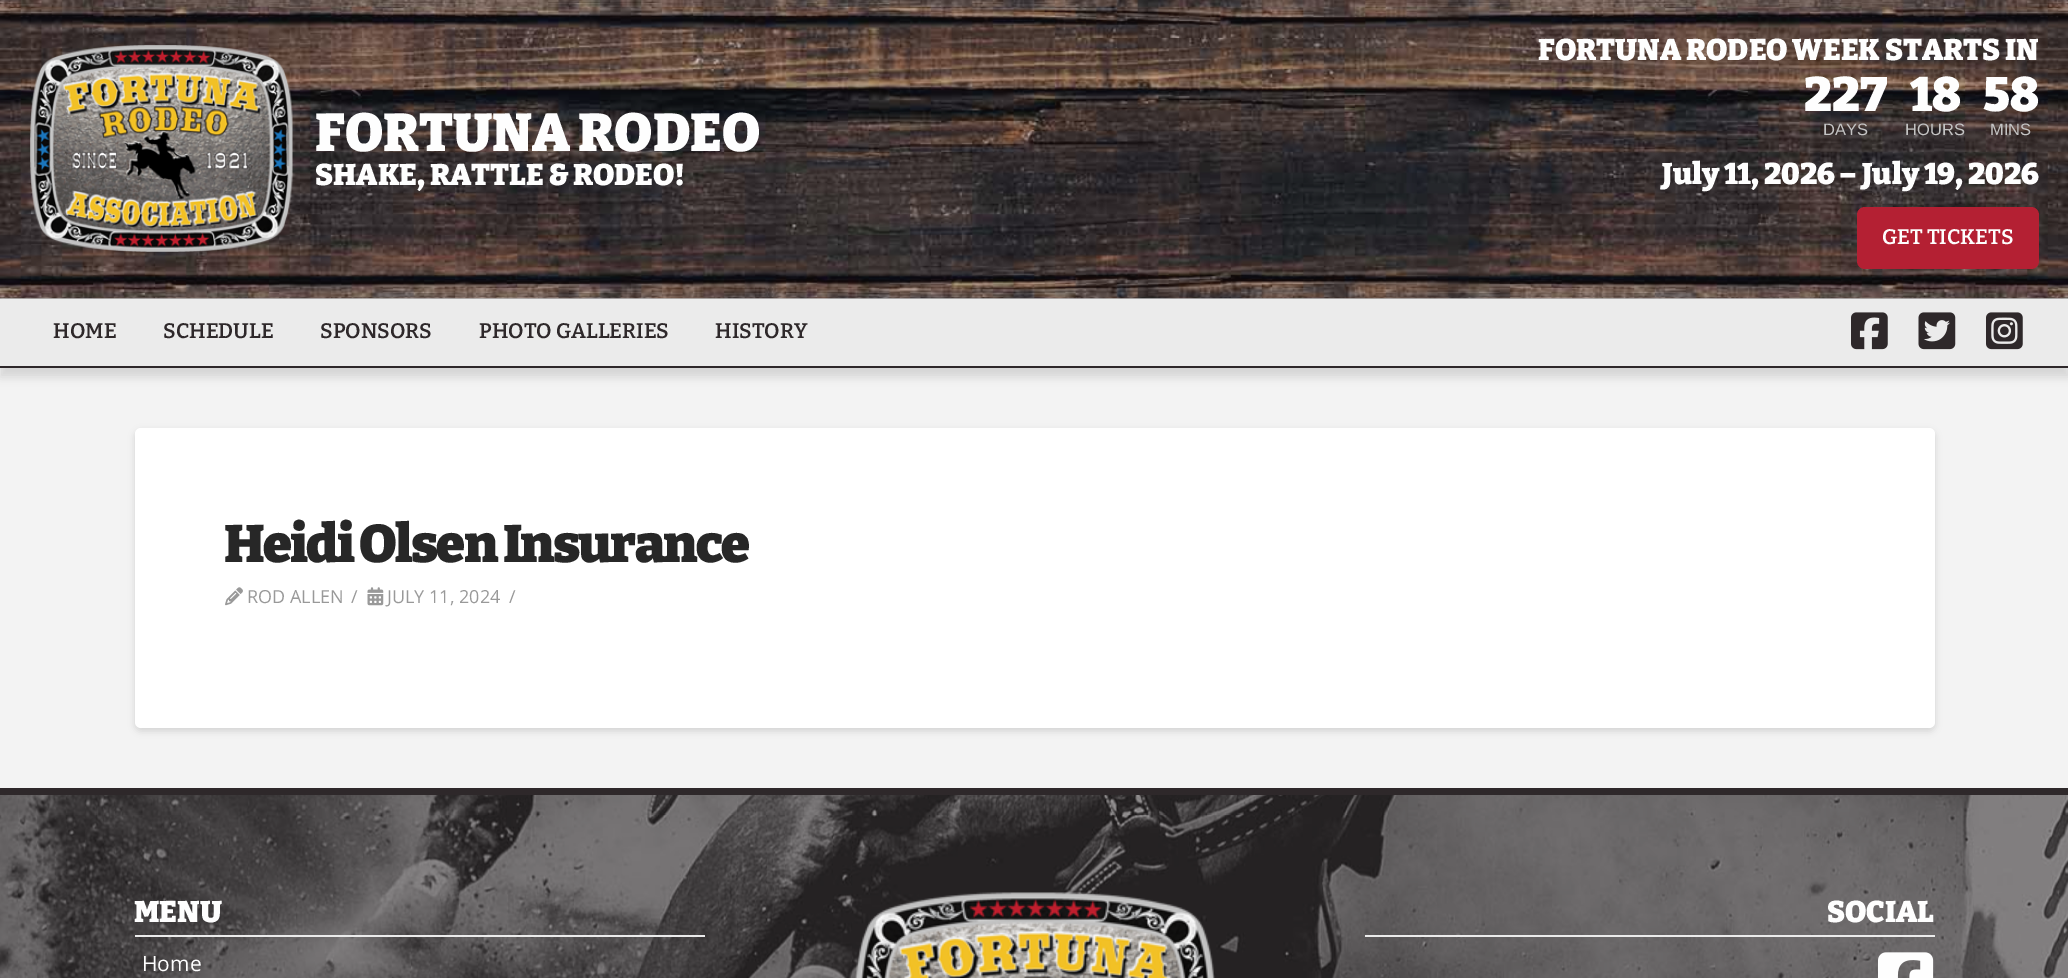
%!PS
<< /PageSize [2068 978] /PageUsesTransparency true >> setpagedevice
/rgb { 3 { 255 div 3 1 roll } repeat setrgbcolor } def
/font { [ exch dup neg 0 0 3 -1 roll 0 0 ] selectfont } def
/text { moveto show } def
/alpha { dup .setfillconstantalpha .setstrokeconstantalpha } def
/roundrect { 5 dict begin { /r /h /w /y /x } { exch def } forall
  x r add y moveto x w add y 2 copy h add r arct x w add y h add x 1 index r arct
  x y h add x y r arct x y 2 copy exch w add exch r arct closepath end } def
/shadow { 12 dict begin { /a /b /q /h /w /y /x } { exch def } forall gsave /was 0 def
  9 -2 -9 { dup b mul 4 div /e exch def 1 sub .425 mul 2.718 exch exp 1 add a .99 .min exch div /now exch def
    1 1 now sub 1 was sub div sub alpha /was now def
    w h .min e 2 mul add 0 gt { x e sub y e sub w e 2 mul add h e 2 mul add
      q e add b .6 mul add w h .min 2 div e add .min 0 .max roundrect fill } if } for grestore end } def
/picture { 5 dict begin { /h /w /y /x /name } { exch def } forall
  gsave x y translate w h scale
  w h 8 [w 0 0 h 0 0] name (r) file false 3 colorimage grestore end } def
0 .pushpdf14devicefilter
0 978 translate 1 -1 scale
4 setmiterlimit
243 243 243 rgb
0 0 2068 978 rectfill
0 0 0 rgb
0 5 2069 298 0 19 0.15 shadow
(img_01.rgb) 0 0 2068 299 picture
0.22 alpha
46 40 42 rgb
0 0 2068 299 rectfill
1 alpha
(img_02.rgb) 30 45 263 207 picture
180 32 51 rgb
1857 207 182 62 8 roundrect fill
0 0 0 rgb
0 308 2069 69 0 4.5 0.12 shadow
235 235 235 rgb
0 299 2068 67 rectfill
46 40 42 rgb
0 366 2068 2 rectfill
(img_03.rgb) 1851 312 37 38 picture
(img_04.rgb) 1918 312 38 38 picture
(img_05.rgb) 1986 312 37 38 picture
0 0 0 rgb
135 431 1800 300 6 3.5 0.13 shadow
255 255 255 rgb
135 428 1800 300 6 roundrect fill
(img_06.rgb) 225 587 18 19 picture
(img_07.rgb) 367 587 17 19 picture
46 40 42 rgb
0 788 2068 7 rectfill
(img_08.rgb) 0 795 2068 183 picture
235 235 235 rgb
135 935 570 2 rectfill
(img_09.rgb) 855 892 360 86 picture
1365 935 570 2 rectfill
(img_10.rgb) 1878 952 56 26 picture
/Bitter-Black 53.1 font
254 254 254 rgb
(FORTUNA RODEO) 315 151 text
/Bitter-Black 29.8 font
(SHAKE, RATTLE & RODEO!) 315 185 text
(FORTUNA RODEO WEEK STARTS IN) 1538 60 text
/Bitter-Black 48 font
(227) 1804 111 text
/LiberationSans-Regular 16.5 font
196 196 196 rgb
(DAYS) 1823 135 text
/Bitter-Black 48 font
254 254 254 rgb
(18) 1910 111 text
/LiberationSans-Regular 16.5 font
196 196 196 rgb
(HOURS) 1905 135 text
/Bitter-Black 48 font
254 254 254 rgb
(58) 1983 111 text
/LiberationSans-Regular 16.5 font
196 196 196 rgb
(MINS) 1990 135 text
/Bitter-Black 29.8 font
254 254 254 rgb
(July 11, 2026 – July 19, 2026) 1662 184 text
/Bitter-SemiBold 21 font
(GET TICKETS) 1882 244 text
46 40 42 rgb
(HOME) 53 338 text
(SCHEDULE) 163 338 text
(SPONSORS) 320 338 text
(PHOTO GALLERIES) 479 338 text
(HISTORY) 715 338 text
/Bitter-Black 52.5 font
39 39 39 rgb
224 562 moveto -1.8 0 (Heidi Olsen Insurance) ashow
/OpenSans-Regular 18 font
153 153 153 rgb
(ROD ALLEN) 247 603 text
(/) 351 603 text
(JULY 11, 2024) 387 603 text
(/) 509 603 text
/Bitter-Black 29.8 font
254 254 254 rgb
(MENU) 134 922 text
/OpenSans-Regular 21 font
(Home) 142 971 text
/Bitter-Black 29.8 font
(SOCIAL) 1827 922 text
.poppdf14devicefilter showpage
